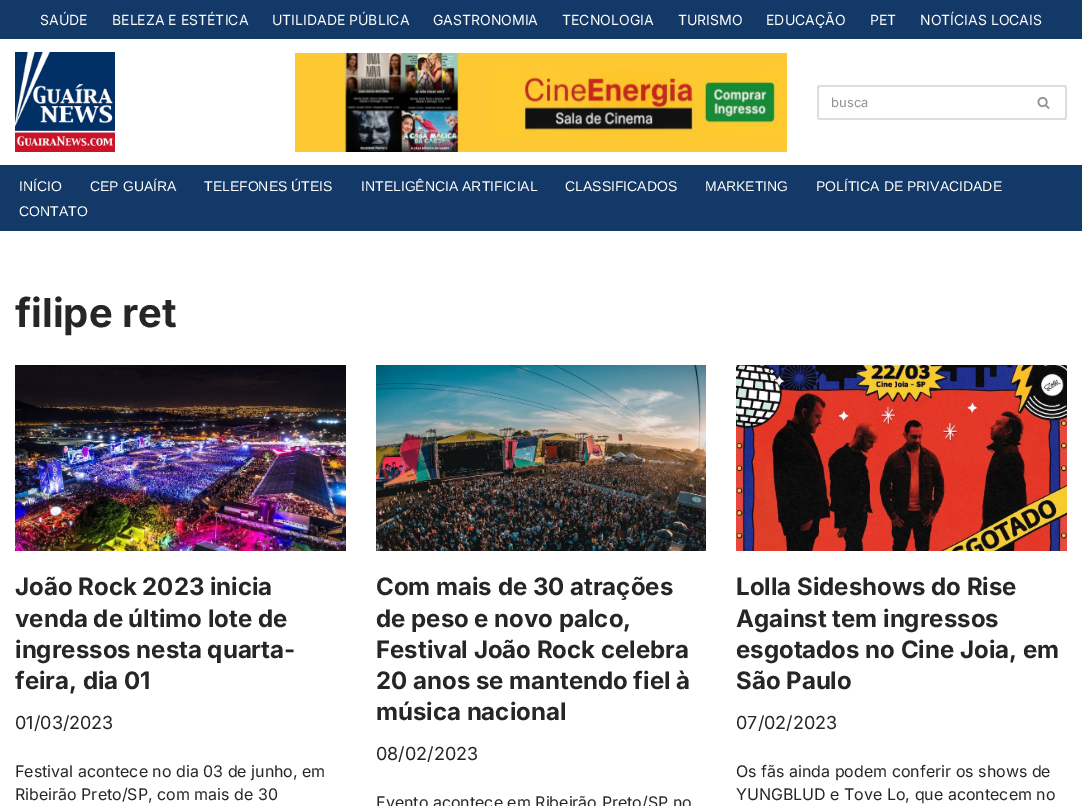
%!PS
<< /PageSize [1082 806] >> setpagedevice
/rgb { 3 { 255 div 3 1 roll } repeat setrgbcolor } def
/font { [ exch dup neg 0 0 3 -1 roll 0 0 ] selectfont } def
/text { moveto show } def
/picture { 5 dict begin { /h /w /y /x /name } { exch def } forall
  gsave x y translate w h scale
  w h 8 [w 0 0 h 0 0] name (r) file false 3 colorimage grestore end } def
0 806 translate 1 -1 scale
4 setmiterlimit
255 255 255 rgb
0 0 1082 806 rectfill
19 57 104 rgb
0 0 1082 39 rectfill
(img_01.rgb) 15 52 100 100 picture
(img_02.rgb) 295 53 492 99 picture
221 221 221 rgb
820 85 moveto 202 0 rlineto 0 35 rlineto -202 0 rlineto -2 0 -3 -1 -3 -3 rcurveto 0 -29 rlineto 0 -2 1 -3 3 -3 rcurveto closepath 820 87 moveto 202 0 rlineto 0 31 rlineto -202 0 rlineto -1 0 rlineto 0 -20 rlineto 0 -2 -1 -11 1 -11 rcurveto closepath eofill
1022 85 moveto 42 0 rlineto 2 0 3 1 3 3 rcurveto 0 29 rlineto 0 2 -1 3 -3 3 rcurveto -42 0 rlineto closepath 1022 87 moveto 42 0 rlineto 1 0 1 0 1 1 rcurveto 0 29 rlineto 0 1 0 1 -1 1 rcurveto -42 0 rlineto closepath eofill
(img_03.rgb) 1037 96 13 13 picture
19 57 104 rgb
0 165 1082 66 rectfill
(img_04.rgb) 15 365 331 186 picture
(img_05.rgb) 376 365 330 186 picture
(img_06.rgb) 736 365 331 186 picture
/Inter-Regular 14 font
255 255 255 rgb
(SAÚDE) 40 25 text
(BELEZA E ESTÉTICA) 112 25 text
(UTILIDADE PÚBLICA) 272 25 text
(GASTRONOMIA) 433 25 text
(TECNOLOGIA) 562 25 text
(TURISMO) 678 25 text
(EDUCAÇÃO) 766 25 text
(PET) 870 25 text
(NOTÍCIAS LOCAIS) 920 25 text
/Inter-Regular 13 font
147 147 147 rgb
(busca) 831 107 text
/LiberationSans-Regular 14 font
255 255 255 rgb
(INÍCIO) 19 191 text
(CEP GUAÍRA) 90 191 text
(TELEFONES ÚTEIS) 204 191 text
(INTELIGÊNCIA ARTIFICIAL) 361 191 text
(CLASSIFICADOS) 565 191 text
(MARKETING) 705 191 text
(POLÍTICA DE PRIVACIDADE) 816 191 text
(CONTATO) 19 216 text
/Inter-Bold 40 font
39 38 38 rgb
(filipe ret) 15 327 text
/Inter-Bold 24 font
(João Rock 2023 inicia) 15 595 text
(venda de último lote de) 15 627 text
(ingressos nesta quarta-) 15 658 text
(feira, dia 01) 15 689 text
/Inter-Regular 18 font
(01/03/2023) 15 729 text
/Inter-Regular 16 font
(Festival acontece no dia 03 de junho, em) 15 777 text
(Ribeirão Preto/SP, com mais de 30) 15 800 text
/Inter-Bold 24 font
(Com mais de 30 atrações) 376 595 text
(de peso e novo palco,) 376 627 text
(Festival João Rock celebra) 376 658 text
(20 anos se mantendo fiel à) 376 689 text
(música nacional) 376 720 text
/Inter-Regular 18 font
(08/02/2023) 376 760 text
/Inter-Regular 16 font
(Evento acontece em Ribeirão Preto/SP no) 376 808 text
/Inter-Bold 24 font
(Lolla Sideshows do Rise) 736 595 text
(Against tem ingressos) 736 627 text
(esgotados no Cine Joia, em) 736 658 text
(São Paulo) 736 689 text
/Inter-Regular 18 font
(07/02/2023) 736 729 text
/Inter-Regular 16 font
(Os fãs ainda podem conferir os shows de) 736 777 text
(YUNGBLUD e Tove Lo, que acontecem no) 736 800 text
showpage
